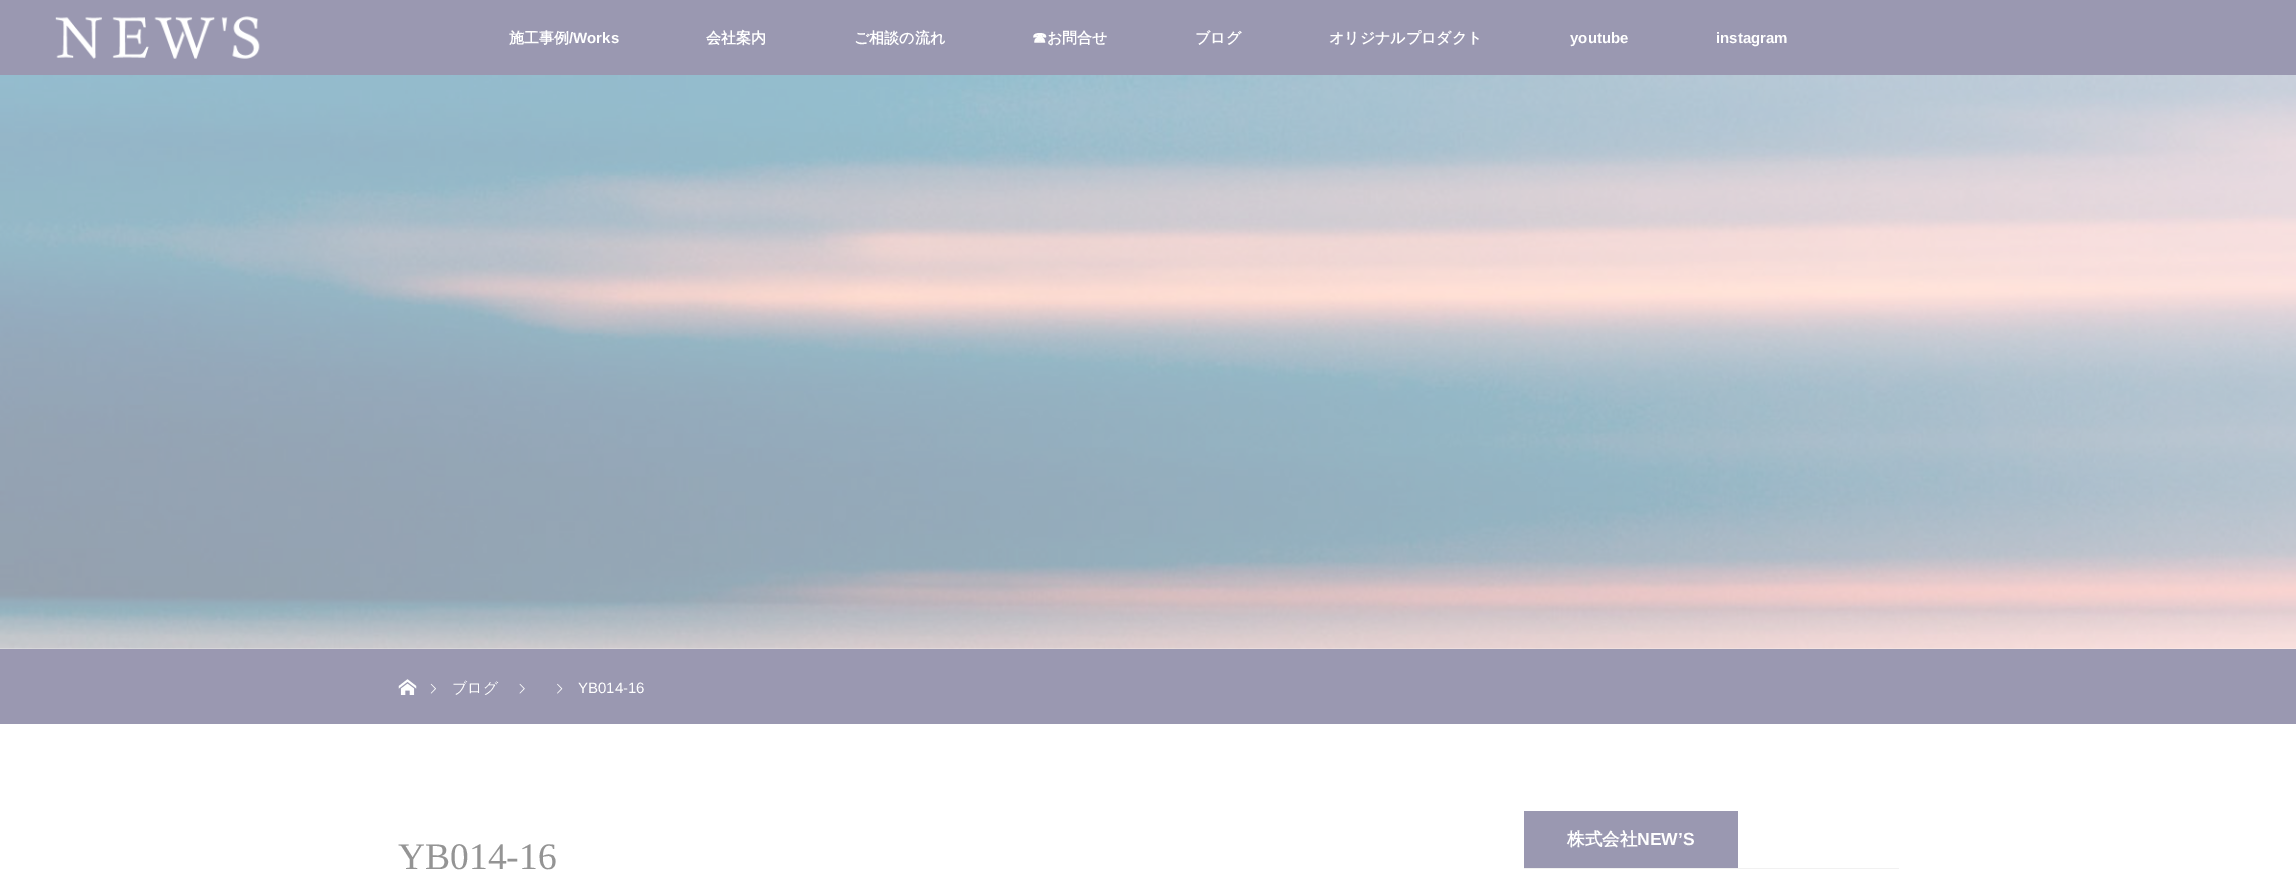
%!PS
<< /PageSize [2296 877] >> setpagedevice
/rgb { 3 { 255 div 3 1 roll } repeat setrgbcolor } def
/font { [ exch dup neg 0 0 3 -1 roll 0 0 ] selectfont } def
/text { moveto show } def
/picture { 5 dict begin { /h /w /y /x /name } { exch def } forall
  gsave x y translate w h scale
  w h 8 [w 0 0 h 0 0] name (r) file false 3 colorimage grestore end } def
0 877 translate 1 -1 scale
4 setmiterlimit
255 255 255 rgb
0 0 2296 877 rectfill
154 152 177 rgb
0 0 2296 75 rectfill
(img_01.rgb) 55 16 205 43 picture
(img_02.rgb) 0 75 2296 574 picture
0 649 2296 75 rectfill
(img_03.rgb) 398 679 19 16 picture
(img_04.rgb) 430 683 6 11 picture
(img_05.rgb) 519 683 6 11 picture
(img_06.rgb) 557 683 6 11 picture
241 241 241 rgb
1524 868 375 1 rectfill
154 152 177 rgb
1524 811 214 57 rectfill
/WenQuanYiZenHei-Bold 15 font
255 255 255 rgb
(施工事例) 509 43 text
/LiberationSans-Bold 15 font
(/Works) 569 43 text
/WenQuanYiZenHei-Bold 15 font
(会社案内) 706 43 text
(ご相談の流れ) 854 43 text
(☎お問合せ) 1032 43 text
(ブログ) 1195 43 text
(オリジナルプロダクト) 1329 43 text
/LiberationSans-Bold 15 font
(youtube) 1570 43 text
(instagram) 1716 43 text
/WenQuanYiZenHei-Medium 15 font
(ブログ) 452 693 text
/LiberationSans-Regular 15 font
(YB014-16) 578 693 text
/WenQuanYiZenHei-Bold 17.5 font
(株式会社) 1567 845 text
/LiberationSans-Bold 17.5 font
(NEW’S) 1637 845 text
/LiberationSerif-Regular 37.5 font
148 148 148 rgb
(YB014-16) 398 869 text
showpage
